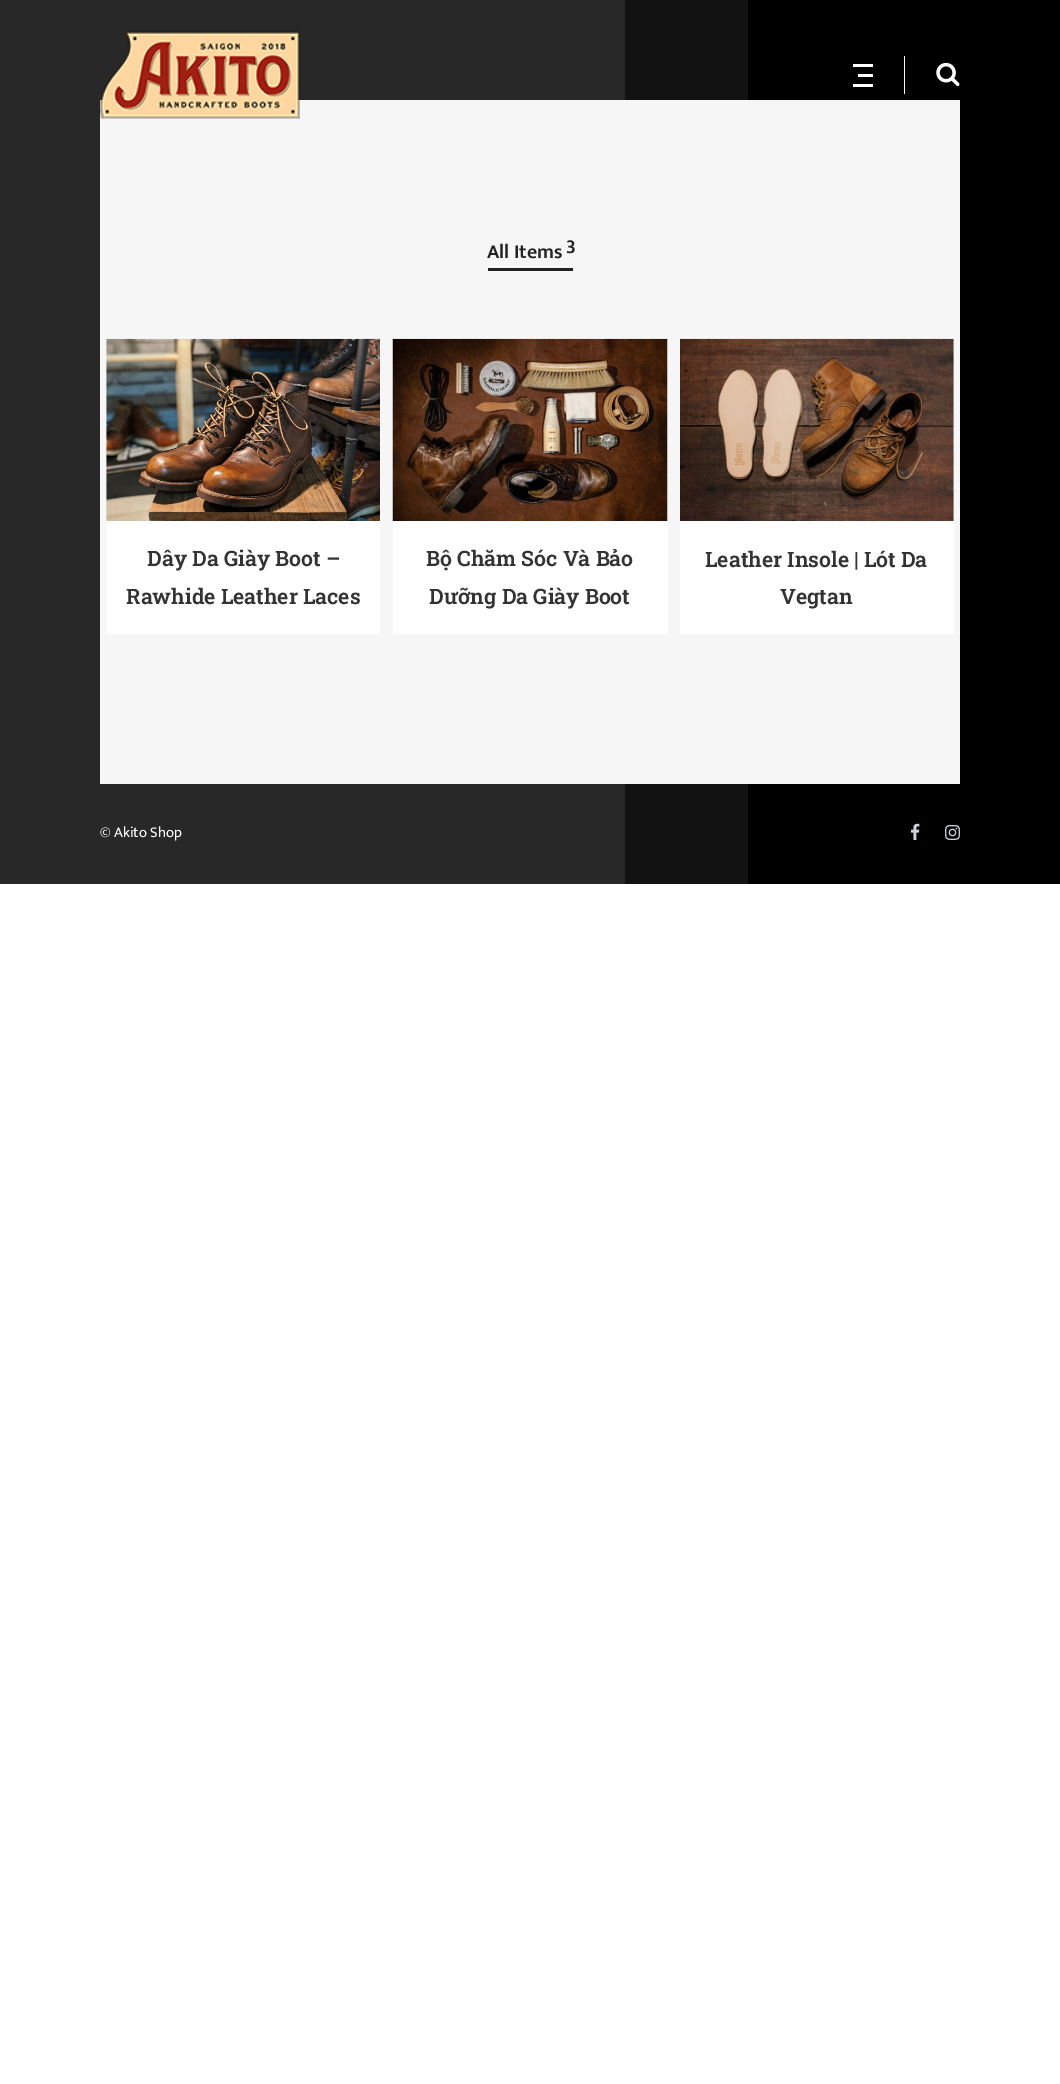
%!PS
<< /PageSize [1060 2084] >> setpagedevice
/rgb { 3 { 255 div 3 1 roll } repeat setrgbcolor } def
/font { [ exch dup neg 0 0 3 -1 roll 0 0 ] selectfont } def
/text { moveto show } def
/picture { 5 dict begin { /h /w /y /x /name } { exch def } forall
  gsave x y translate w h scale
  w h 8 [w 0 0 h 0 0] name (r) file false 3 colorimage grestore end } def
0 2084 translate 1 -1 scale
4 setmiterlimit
255 255 255 rgb
0 0 1060 2084 rectfill
18 18 18 rgb
625 0 123 884 rectfill
40 40 40 rgb
0 0 625 884 rectfill
0 0 0 rgb
748 0 312 884 rectfill
246 246 246 rgb
100 100 860 684 rectfill
(img_01.rgb) 100 31 200 88 picture
255 255 255 rgb
853 64 20 3 rectfill
858 74 15 3 rectfill
853 84 20 3 rectfill
247 247 247 rgb
904 56 1 38 rectfill
(img_02.rgb) 936 62 24 25 picture
34 34 34 rgb
488 268 85 3 rectfill
(img_03.rgb) 106 338 274 183 picture
255 255 255 rgb
106 521 274 113 rectfill
(img_04.rgb) 392 338 276 184 picture
393 521 275 113 rectfill
(img_05.rgb) 680 338 274 183 picture
680 521 274 113 rectfill
(img_06.rgb) 910 823 10 17 picture
(img_07.rgb) 945 825 15 15 picture
/Mukta-SemiBold 20 font
34 34 34 rgb
(All Items) 487 258 text
(3) 566 253 text
/RobotoSlab-SemiBold 21.25 font
51 51 51 rgb
(Dây Da Giày Boot –) 147 566 text
(Rawhide Leather Laces) 126 604 text
(Bộ Chăm Sóc Và Bảo) 426 566 text
(Dưỡng Da Giày Boot) 429 604 text
(Leather Insole | Lót Da) 705 567 text
(Vegtan) 780 604 text
/Mukta-Regular 15 font
255 255 255 rgb
(© Akito Shop) 100 837 text
showpage
